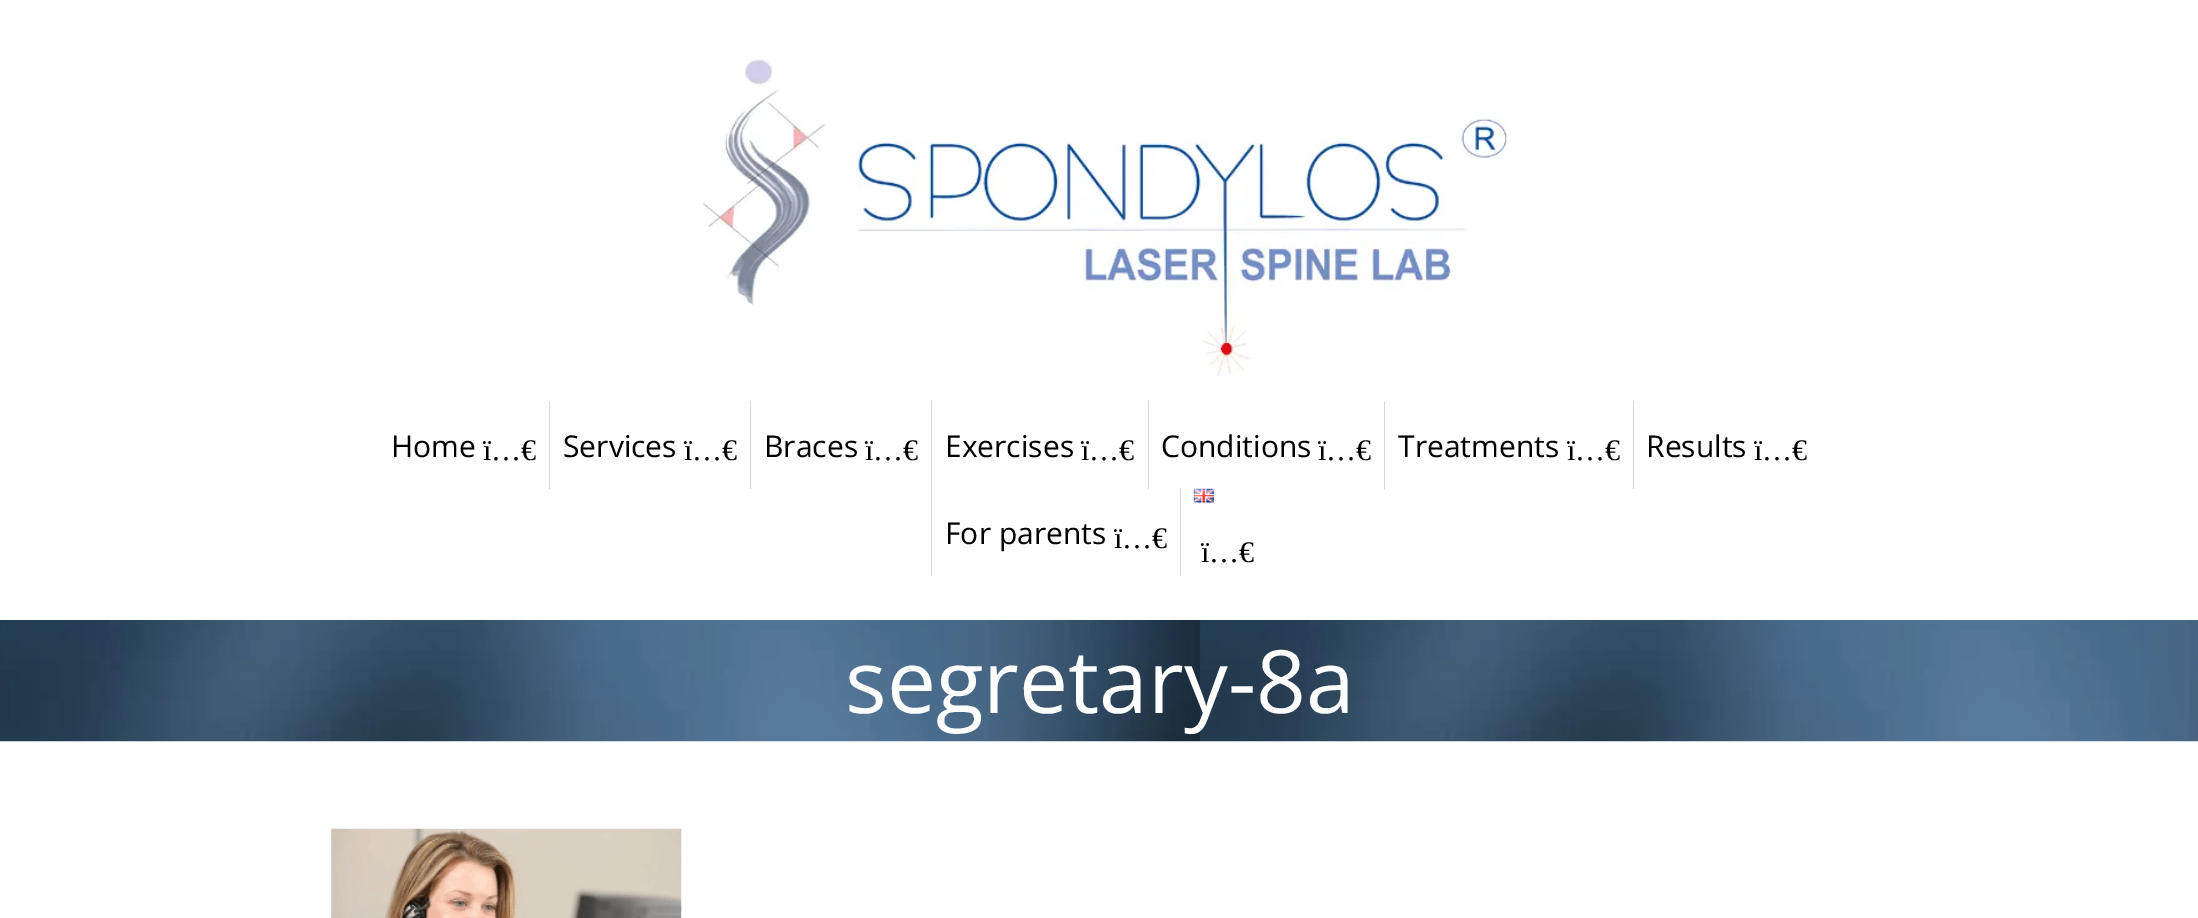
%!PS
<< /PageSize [2198 918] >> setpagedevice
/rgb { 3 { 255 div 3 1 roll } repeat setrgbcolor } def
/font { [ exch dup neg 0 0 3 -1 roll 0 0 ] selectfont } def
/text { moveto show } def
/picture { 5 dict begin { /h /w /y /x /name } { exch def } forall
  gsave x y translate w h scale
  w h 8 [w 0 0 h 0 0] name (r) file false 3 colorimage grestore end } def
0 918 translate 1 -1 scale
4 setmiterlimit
255 255 255 rgb
0 0 2198 918 rectfill
(img_01.rgb) 703 59 804 317 picture
207 218 226 rgb
549 401 1 88 rectfill
750 401 1 88 rectfill
931 401 1 175 rectfill
1148 401 1 88 rectfill
1384 401 1 88 rectfill
1633 401 1 88 rectfill
1180 489 1 87 rectfill
(img_02.rgb) 1193 488 21 15 picture
(img_03.rgb) 0 620 2198 122 picture
(img_04.rgb) 331 828 351 90 picture
/OpenSans-Regular 30 font
0 0 0 rgb
(Home) 391 457 text
/LiberationSerif-Regular 30 font
(ï…€) 483 460 text
/OpenSans-Regular 30 font
(Services) 563 457 text
/LiberationSerif-Regular 30 font
(ï…€) 684 460 text
/OpenSans-Regular 30 font
(Braces) 764 457 text
/LiberationSerif-Regular 30 font
(ï…€) 865 460 text
/OpenSans-Regular 30 font
(Exercises) 945 457 text
/LiberationSerif-Regular 30 font
(ï…€) 1081 460 text
/OpenSans-Regular 30 font
(Conditions) 1161 457 text
/LiberationSerif-Regular 30 font
(ï…€) 1318 460 text
/OpenSans-Regular 30 font
(Treatments) 1398 457 text
/LiberationSerif-Regular 30 font
(ï…€) 1567 460 text
/OpenSans-Regular 30 font
(Results) 1646 457 text
/LiberationSerif-Regular 30 font
(ï…€) 1754 460 text
/OpenSans-Regular 30 font
(For parents) 945 544 text
/LiberationSerif-Regular 30 font
(ï…€) 1114 548 text
(ï…€) 1201 562 text
/OpenSans-Regular 87.5 font
255 255 255 rgb
(segretary-8a) 845 713 text
showpage
